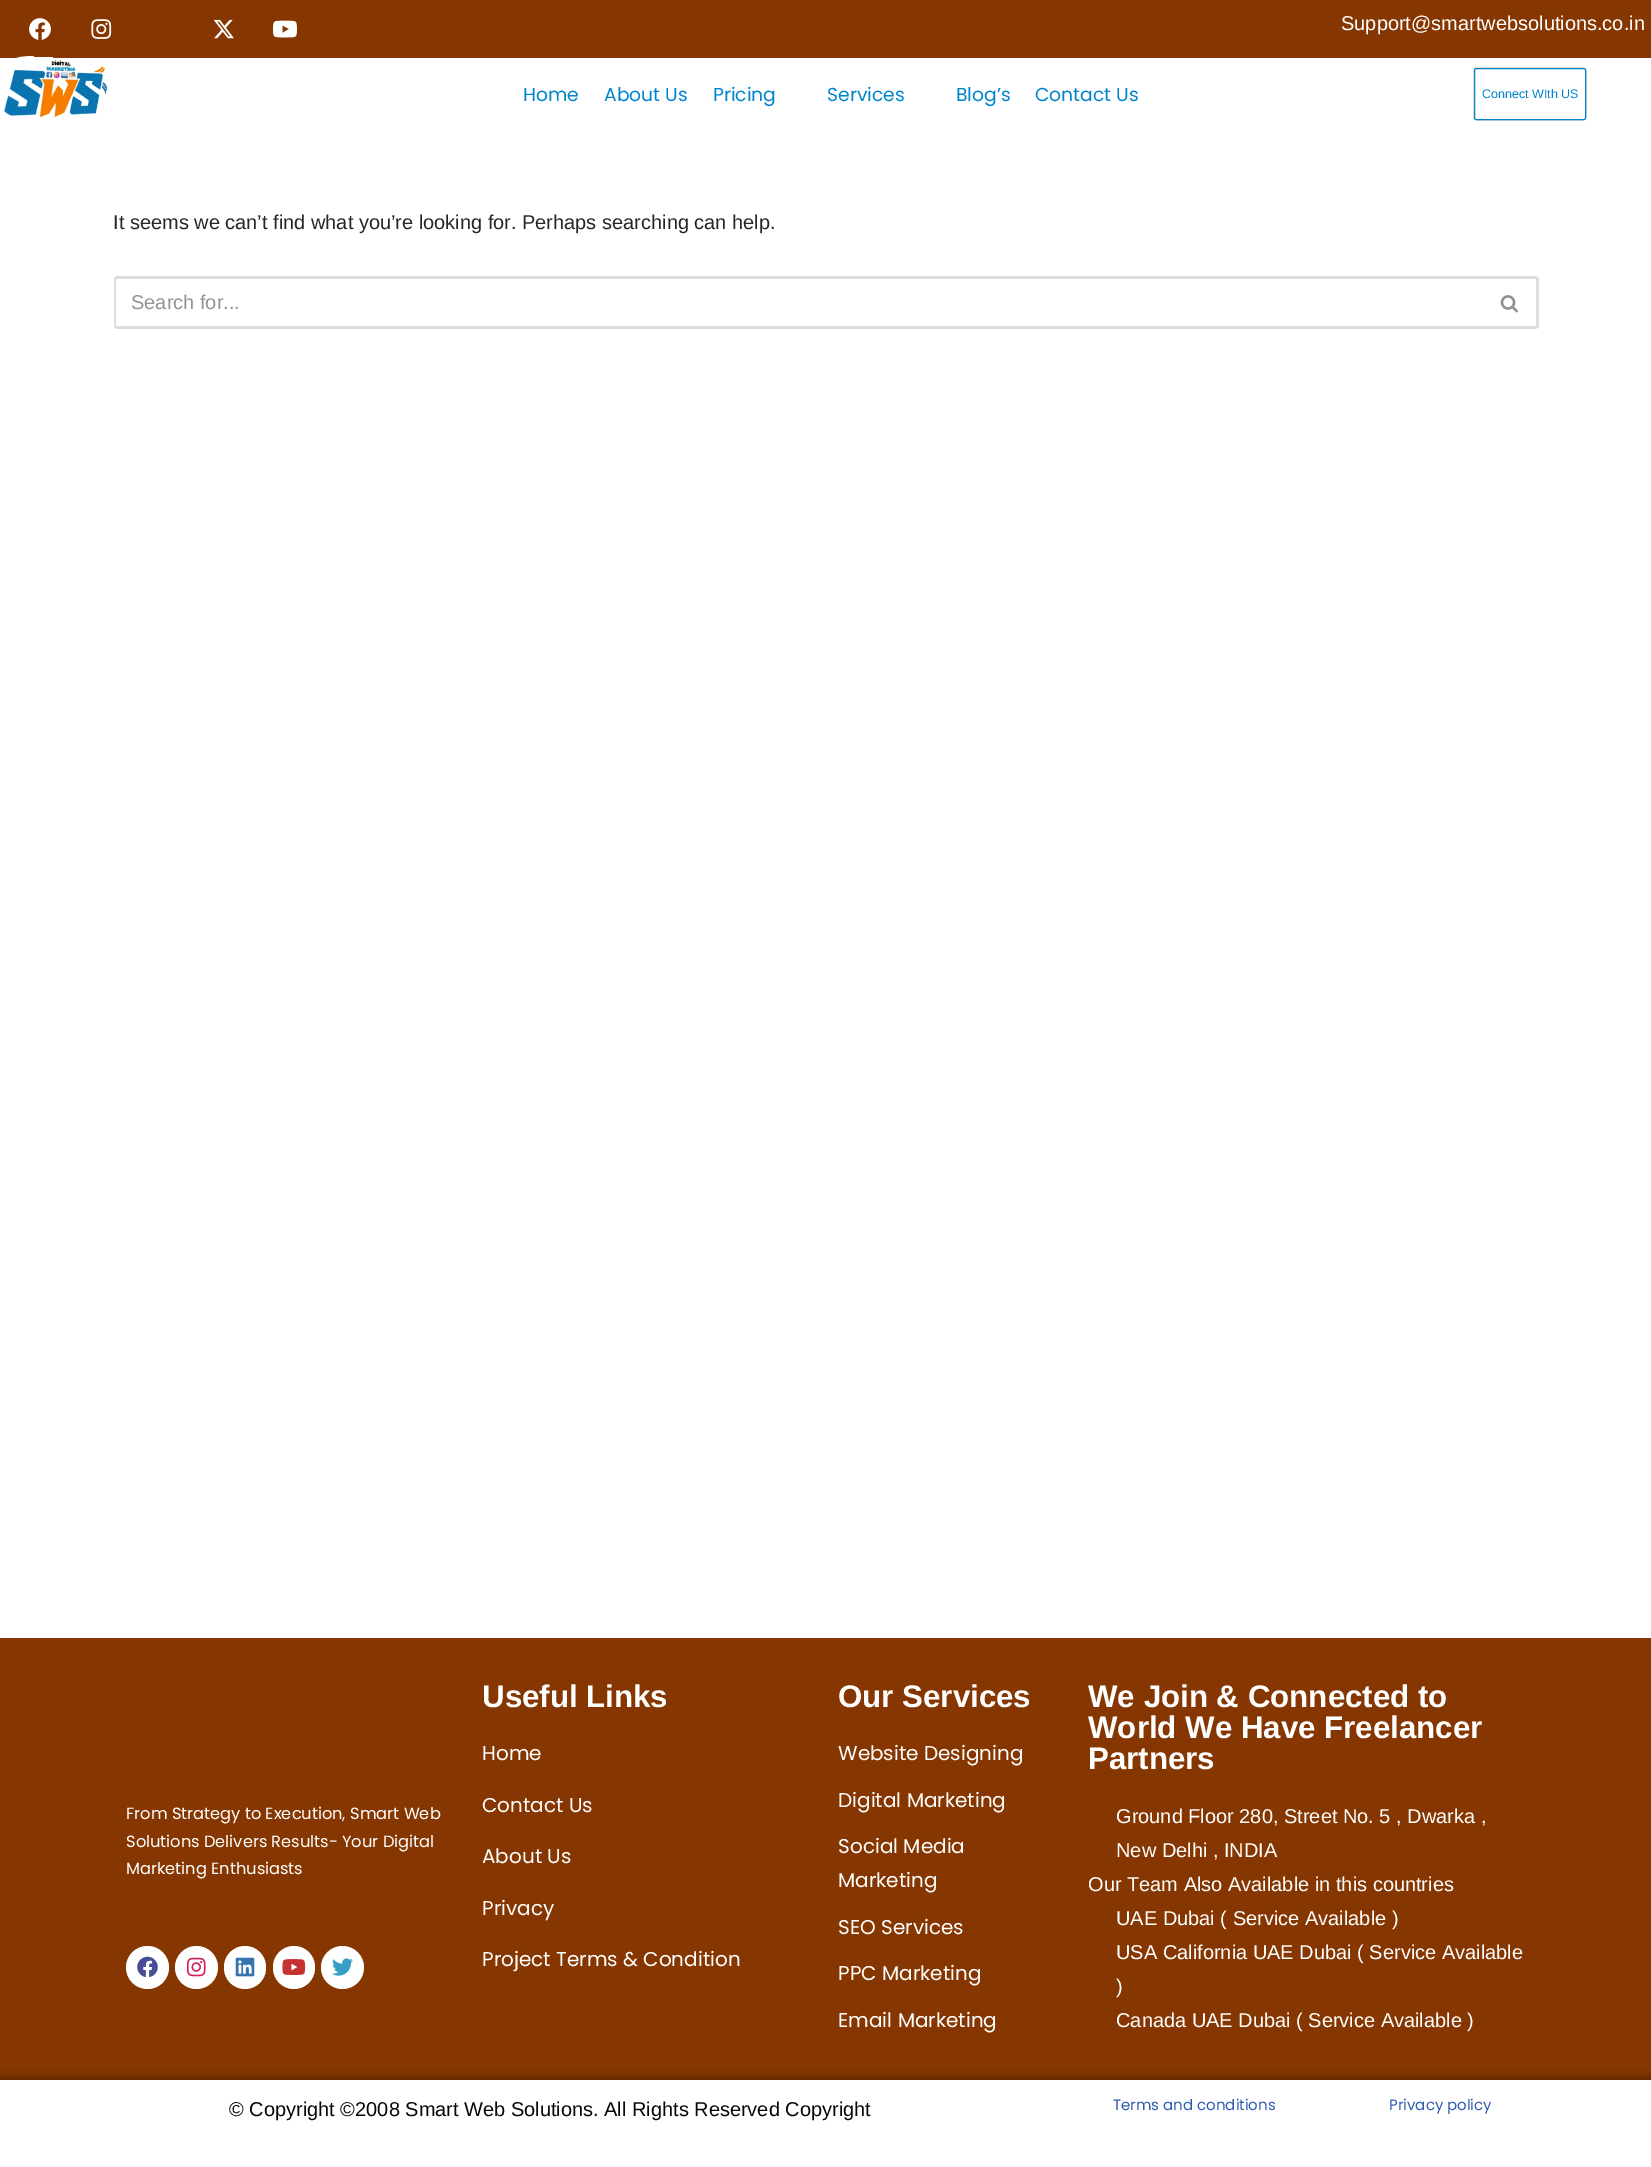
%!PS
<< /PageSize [1651 2167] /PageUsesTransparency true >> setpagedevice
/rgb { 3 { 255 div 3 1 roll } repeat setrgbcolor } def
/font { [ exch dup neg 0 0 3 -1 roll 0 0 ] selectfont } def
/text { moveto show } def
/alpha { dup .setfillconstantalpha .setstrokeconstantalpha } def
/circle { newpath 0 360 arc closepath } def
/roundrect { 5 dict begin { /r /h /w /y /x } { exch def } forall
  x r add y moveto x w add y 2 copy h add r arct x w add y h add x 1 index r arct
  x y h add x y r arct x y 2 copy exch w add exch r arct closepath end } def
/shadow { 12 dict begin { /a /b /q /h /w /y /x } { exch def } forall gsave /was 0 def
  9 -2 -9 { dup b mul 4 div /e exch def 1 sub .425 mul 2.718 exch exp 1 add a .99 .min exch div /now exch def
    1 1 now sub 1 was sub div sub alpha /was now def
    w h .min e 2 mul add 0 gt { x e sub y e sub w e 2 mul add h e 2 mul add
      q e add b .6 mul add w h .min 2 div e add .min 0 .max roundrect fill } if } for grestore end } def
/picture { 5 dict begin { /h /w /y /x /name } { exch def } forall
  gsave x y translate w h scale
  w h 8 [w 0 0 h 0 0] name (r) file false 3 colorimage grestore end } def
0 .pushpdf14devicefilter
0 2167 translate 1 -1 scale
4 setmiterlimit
255 255 255 rgb
0 0 1651 2167 rectfill
134 54 0 rgb
0 0 1651 58 rectfill
(img_01.rgb) 29 18 22 22 picture
(img_02.rgb) 91 19 21 20 picture
(img_03.rgb) 213 19 21 20 picture
(img_04.rgb) 273 20 24 18 picture
(img_05.rgb) 4 56 104 62 picture
gsave
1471 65 moveto 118 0 rlineto 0 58 rlineto -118 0 rlineto closepath 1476.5 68 moveto 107 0 rlineto 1.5 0 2.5 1 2.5 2.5 rcurveto 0 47 rlineto 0 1.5 -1 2.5 -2.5 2.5 rcurveto -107 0 rlineto -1.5 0 -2.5 -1 -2.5 -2.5 rcurveto 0 -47 rlineto 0 -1.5 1 -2.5 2.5 -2.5 rcurveto closepath eoclip newpath
0 0 0 rgb
1474 68 112 52 2.5 0.5 0.5 shadow
grestore
0 133 205 rgb
1474.5 68.5 111 51 2 roundrect stroke
221 221 221 rgb
118 276 moveto 1364 0 rlineto 0 53 rlineto -1364 0 rlineto -3 0 -4 -2 -4 -4 rcurveto 0 -45 rlineto 0 -2 1 -4 4 -4 rcurveto closepath 118 279 moveto 1364 0 rlineto 0 47 rlineto -1364 0 rlineto -1 0 -2 0 -2 -1 rcurveto 0 -45 rlineto 0 -1 1 -1 2 -1 rcurveto closepath eofill
1482 276 moveto 53 0 rlineto 2 0 4 2 4 4 rcurveto 0 45 rlineto 0 2 -2 4 -4 4 rcurveto -53 0 rlineto closepath 1482 279 moveto 53 0 rlineto 1 0 1 0 1 1 rcurveto 0 45 rlineto 0 1 0 1 -1 1 rcurveto -53 0 rlineto closepath eofill
(img_06.rgb) 1500 295 18 18 picture
134 54 0 rgb
0 1638 1651 442 rectfill
255 255 255 rgb
147.5 1967.5 21.5 circle fill
(img_07.rgb) 137 1956 21 22 picture
196.5 1967.5 21.5 circle fill
(img_08.rgb) 186 1957 20 20 picture
224 1946 42 43 21 roundrect fill
(img_09.rgb) 235 1957 20 20 picture
273 1946 42 43 21 roundrect fill
(img_10.rgb) 282 1959 24 16 picture
342.5 1967.5 21.5 circle fill
(img_11.rgb) 332 1958 21 18 picture
gsave
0 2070 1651 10 rectclip
0 0 0 rgb
0 2080 1651 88 0 6 0.5 shadow
grestore
/LiberationSans-Regular 20 font
(Support@smartwebsolutions.co.in) 1341 30 text
/Poppins-Regular 18.75 font
0 133 205 rgb
(Home) 523 101 text
(About Us) 604 101 text
(Pricing) 713 101 text
(Services) 827 101 text
(Blog’s) 956 101 text
(Contact Us) 1035 101 text
/LiberationSans-Regular 12.5 font
(Connect WIth US) 1482 98 text
/LiberationSans-Regular 20 font
39 38 38 rgb
(It seems we can’t find what you’re looking for. Perhaps searching can help.) 113 229 text
147 147 147 rgb
(Search for...) 131 309 text
/Poppins-Regular 16.25 font
255 255 255 rgb
(From Strategy to Execution, Smart Web) 126 1819 text
(Solutions Delivers Results- Your Digital) 126 1847 text
(Marketing Enthusiasts) 126 1874 text
/LiberationSans-Bold 31.25 font
(Useful Links) 482 1707 text
/Poppins-Regular 20 font
(Home) 482 1760 text
(Contact Us) 482 1812 text
(About Us) 482 1863 text
(Privacy) 482 1915 text
(Project Terms & Condition) 482 1966 text
/LiberationSans-Bold 31.25 font
(Our Services) 838 1707 text
/Poppins-Regular 20 font
(Website Designing) 838 1760 text
(Digital Marketing) 838 1807 text
(Social Media) 838 1853 text
(Marketing) 838 1887 text
(SEO Services) 838 1934 text
(PPC Marketing) 838 1980 text
(Email Marketing) 838 2027 text
/LiberationSans-Bold 31.25 font
(We Join & Connected to) 1088 1707 text
(World We Have Freelancer) 1088 1738 text
(Partners) 1088 1769 text
/LiberationSans-Regular 20 font
(Ground Floor 280, Street No. 5 , Dwarka ,) 1116 1823 text
(New Delhi , INDIA) 1116 1857 text
(Our Team Also Available in this countries) 1088 1891 text
(UAE Dubai \( Service Available \)) 1116 1925 text
(USA California UAE Dubai \( Service Available) 1116 1959 text
(\)) 1116 1993 text
(Canada UAE Dubai \( Service Available \)) 1116 2027 text
7 7 7 rgb
(© Copyright ©2008 Smart Web Solutions. All Rights Reserved Copyright) 229 2116 text
/Poppins-Regular 15 font
47 90 174 rgb
(Terms and conditions) 1113 2110 text
(Privacy policy) 1389 2110 text
.poppdf14devicefilter showpage
